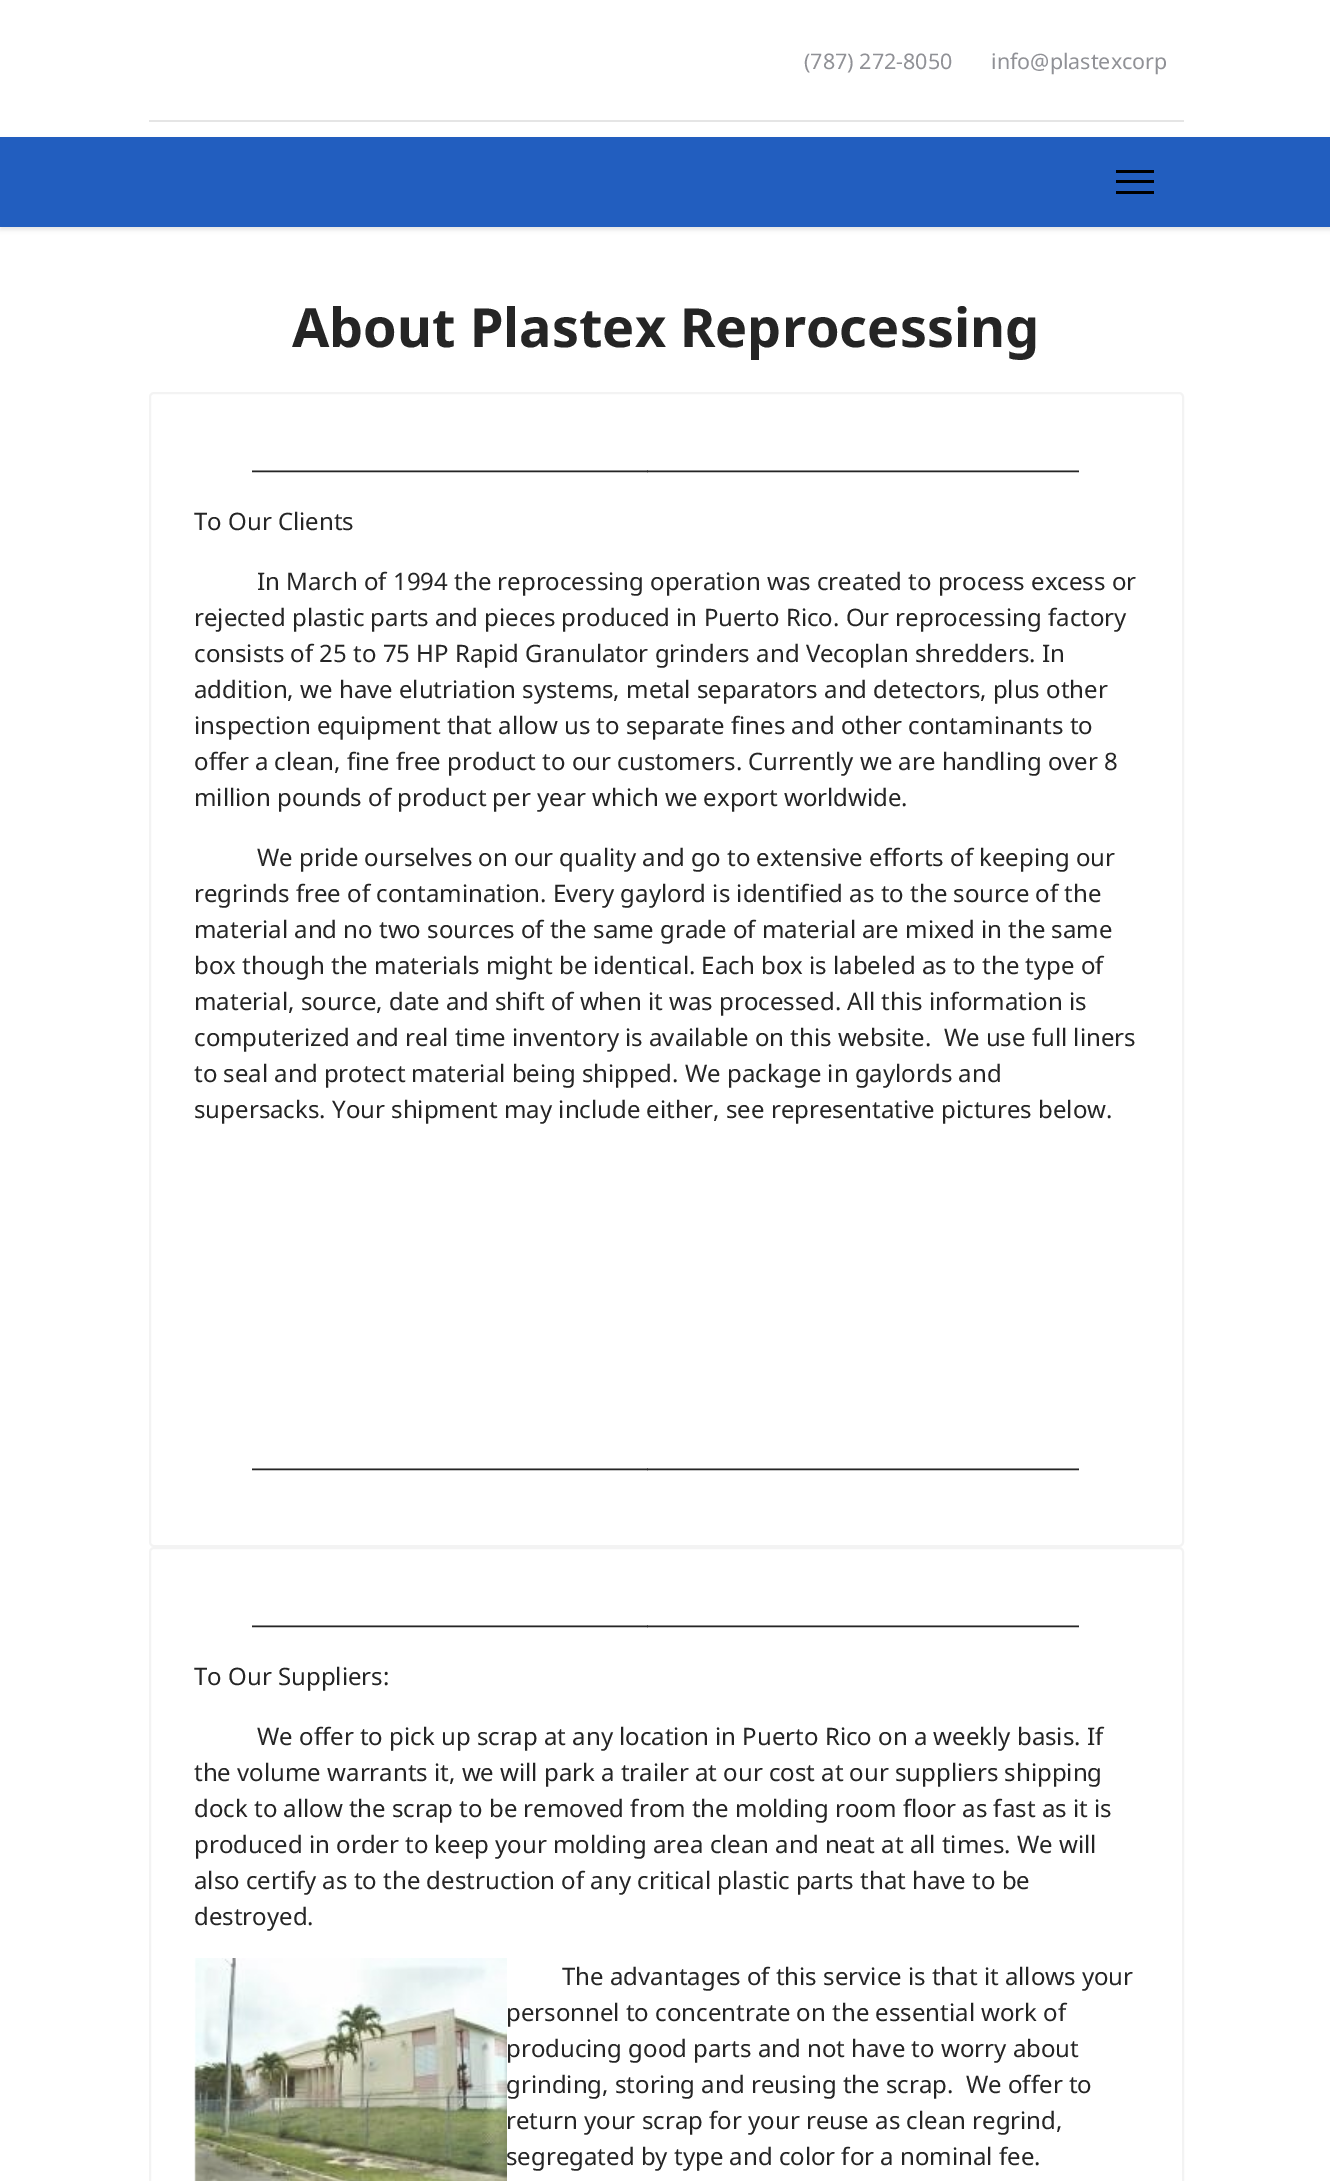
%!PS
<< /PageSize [1330 2181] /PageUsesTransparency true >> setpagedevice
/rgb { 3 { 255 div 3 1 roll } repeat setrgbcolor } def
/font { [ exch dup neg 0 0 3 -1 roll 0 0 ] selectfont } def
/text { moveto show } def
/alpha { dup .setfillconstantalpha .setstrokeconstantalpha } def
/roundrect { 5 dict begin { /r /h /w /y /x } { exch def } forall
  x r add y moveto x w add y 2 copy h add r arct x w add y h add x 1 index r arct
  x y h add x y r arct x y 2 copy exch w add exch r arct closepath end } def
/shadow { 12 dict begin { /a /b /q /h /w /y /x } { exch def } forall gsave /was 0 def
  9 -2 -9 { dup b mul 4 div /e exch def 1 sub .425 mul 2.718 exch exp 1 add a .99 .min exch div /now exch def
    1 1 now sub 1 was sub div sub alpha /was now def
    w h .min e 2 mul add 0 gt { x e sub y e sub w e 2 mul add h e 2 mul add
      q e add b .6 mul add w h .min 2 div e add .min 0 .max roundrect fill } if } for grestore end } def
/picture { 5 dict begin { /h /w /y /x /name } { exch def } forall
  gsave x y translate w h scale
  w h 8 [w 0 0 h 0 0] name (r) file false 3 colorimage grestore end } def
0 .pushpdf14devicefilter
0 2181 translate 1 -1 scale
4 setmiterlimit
255 255 255 rgb
0 0 1330 2181 rectfill
229 229 229 rgb
149 120 1035 2 rectfill
0 0 0 rgb
0 140 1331 90 0 2 0.1 shadow
34 94 191 rgb
0 137 1330 90 rectfill
0 0 0 rgb
1116 170 38 3 rectfill
1116 180 38 3 rectfill
1116 191 38 3 rectfill
243 243 243 rgb
2 setlinewidth
150 393 1033 1153 4 roundrect stroke
150 1548 1033 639 4 roundrect stroke
(img_01.rgb) 194 1958 313 223 picture
/NotoSans-Regular 21.5 font
144 145 150 rgb
(\(787\) 272-8050) 804 69 text
(info@plastexcorp) 991 69 text
/NotoSans-Bold 54 font
37 37 37 rgb
(About Plastex Reprocessing) 292 347 text
/NotoSans-Regular 27 font
(_____________________________________________________________________) 252 468 text
/NotoSans-Regular 24 font
(To Our Clients) 194 530 text
(In March of 1994 the reprocessing operation was created to process excess or) 257 590 text
(rejected plastic parts and pieces produced in Puerto Rico. Our reprocessing factory) 194 626 text
(consists of 25 to 75 HP Rapid Granulator grinders and Vecoplan shredders. In) 194 662 text
(addition, we have elutriation systems, metal separators and detectors, plus other) 194 698 text
(inspection equipment that allow us to separate fines and other contaminants to) 194 734 text
(offer a clean, fine free product to our customers. Currently we are handling over 8) 194 770 text
(million pounds of product per year which we export worldwide.) 194 806 text
(We pride ourselves on our quality and go to extensive efforts of keeping our) 257 866 text
(regrinds free of contamination. Every gaylord is identified as to the source of the) 194 902 text
(material and no two sources of the same grade of material are mixed in the same) 194 938 text
(box though the materials might be identical. Each box is labeled as to the type of) 194 974 text
(material, source, date and shift of when it was processed. All this information is) 194 1010 text
(computerized and real time inventory is available on this website.  We use full liners) 194 1046 text
(to seal and protect material being shipped. We package in gaylords and) 194 1082 text
(supersacks. Your shipment may include either, see representative pictures below.) 194 1118 text
/NotoSans-Regular 27 font
(_____________________________________________________________________) 252 1466 text
(_____________________________________________________________________) 252 1623 text
/NotoSans-Regular 24 font
(To Our Suppliers:) 194 1685 text
(We offer to pick up scrap at any location in Puerto Rico on a weekly basis. If) 257 1745 text
(the volume warrants it, we will park a trailer at our cost at our suppliers shipping) 194 1781 text
(dock to allow the scrap to be removed from the molding room floor as fast as it is) 194 1817 text
(produced in order to keep your molding area clean and neat at all times. We will) 194 1853 text
(also certify as to the destruction of any critical plastic parts that have to be) 194 1889 text
(destroyed.) 194 1925 text
(The advantages of this service is that it allows your) 562 1985 text
(personnel to concentrate on the essential work of) 506 2021 text
(producing good parts and not have to worry about) 506 2057 text
(grinding, storing and reusing the scrap.  We offer to) 506 2093 text
(return your scrap for your reuse as clean regrind,) 506 2129 text
(segregated by type and color for a nominal fee.) 506 2165 text
.poppdf14devicefilter showpage
